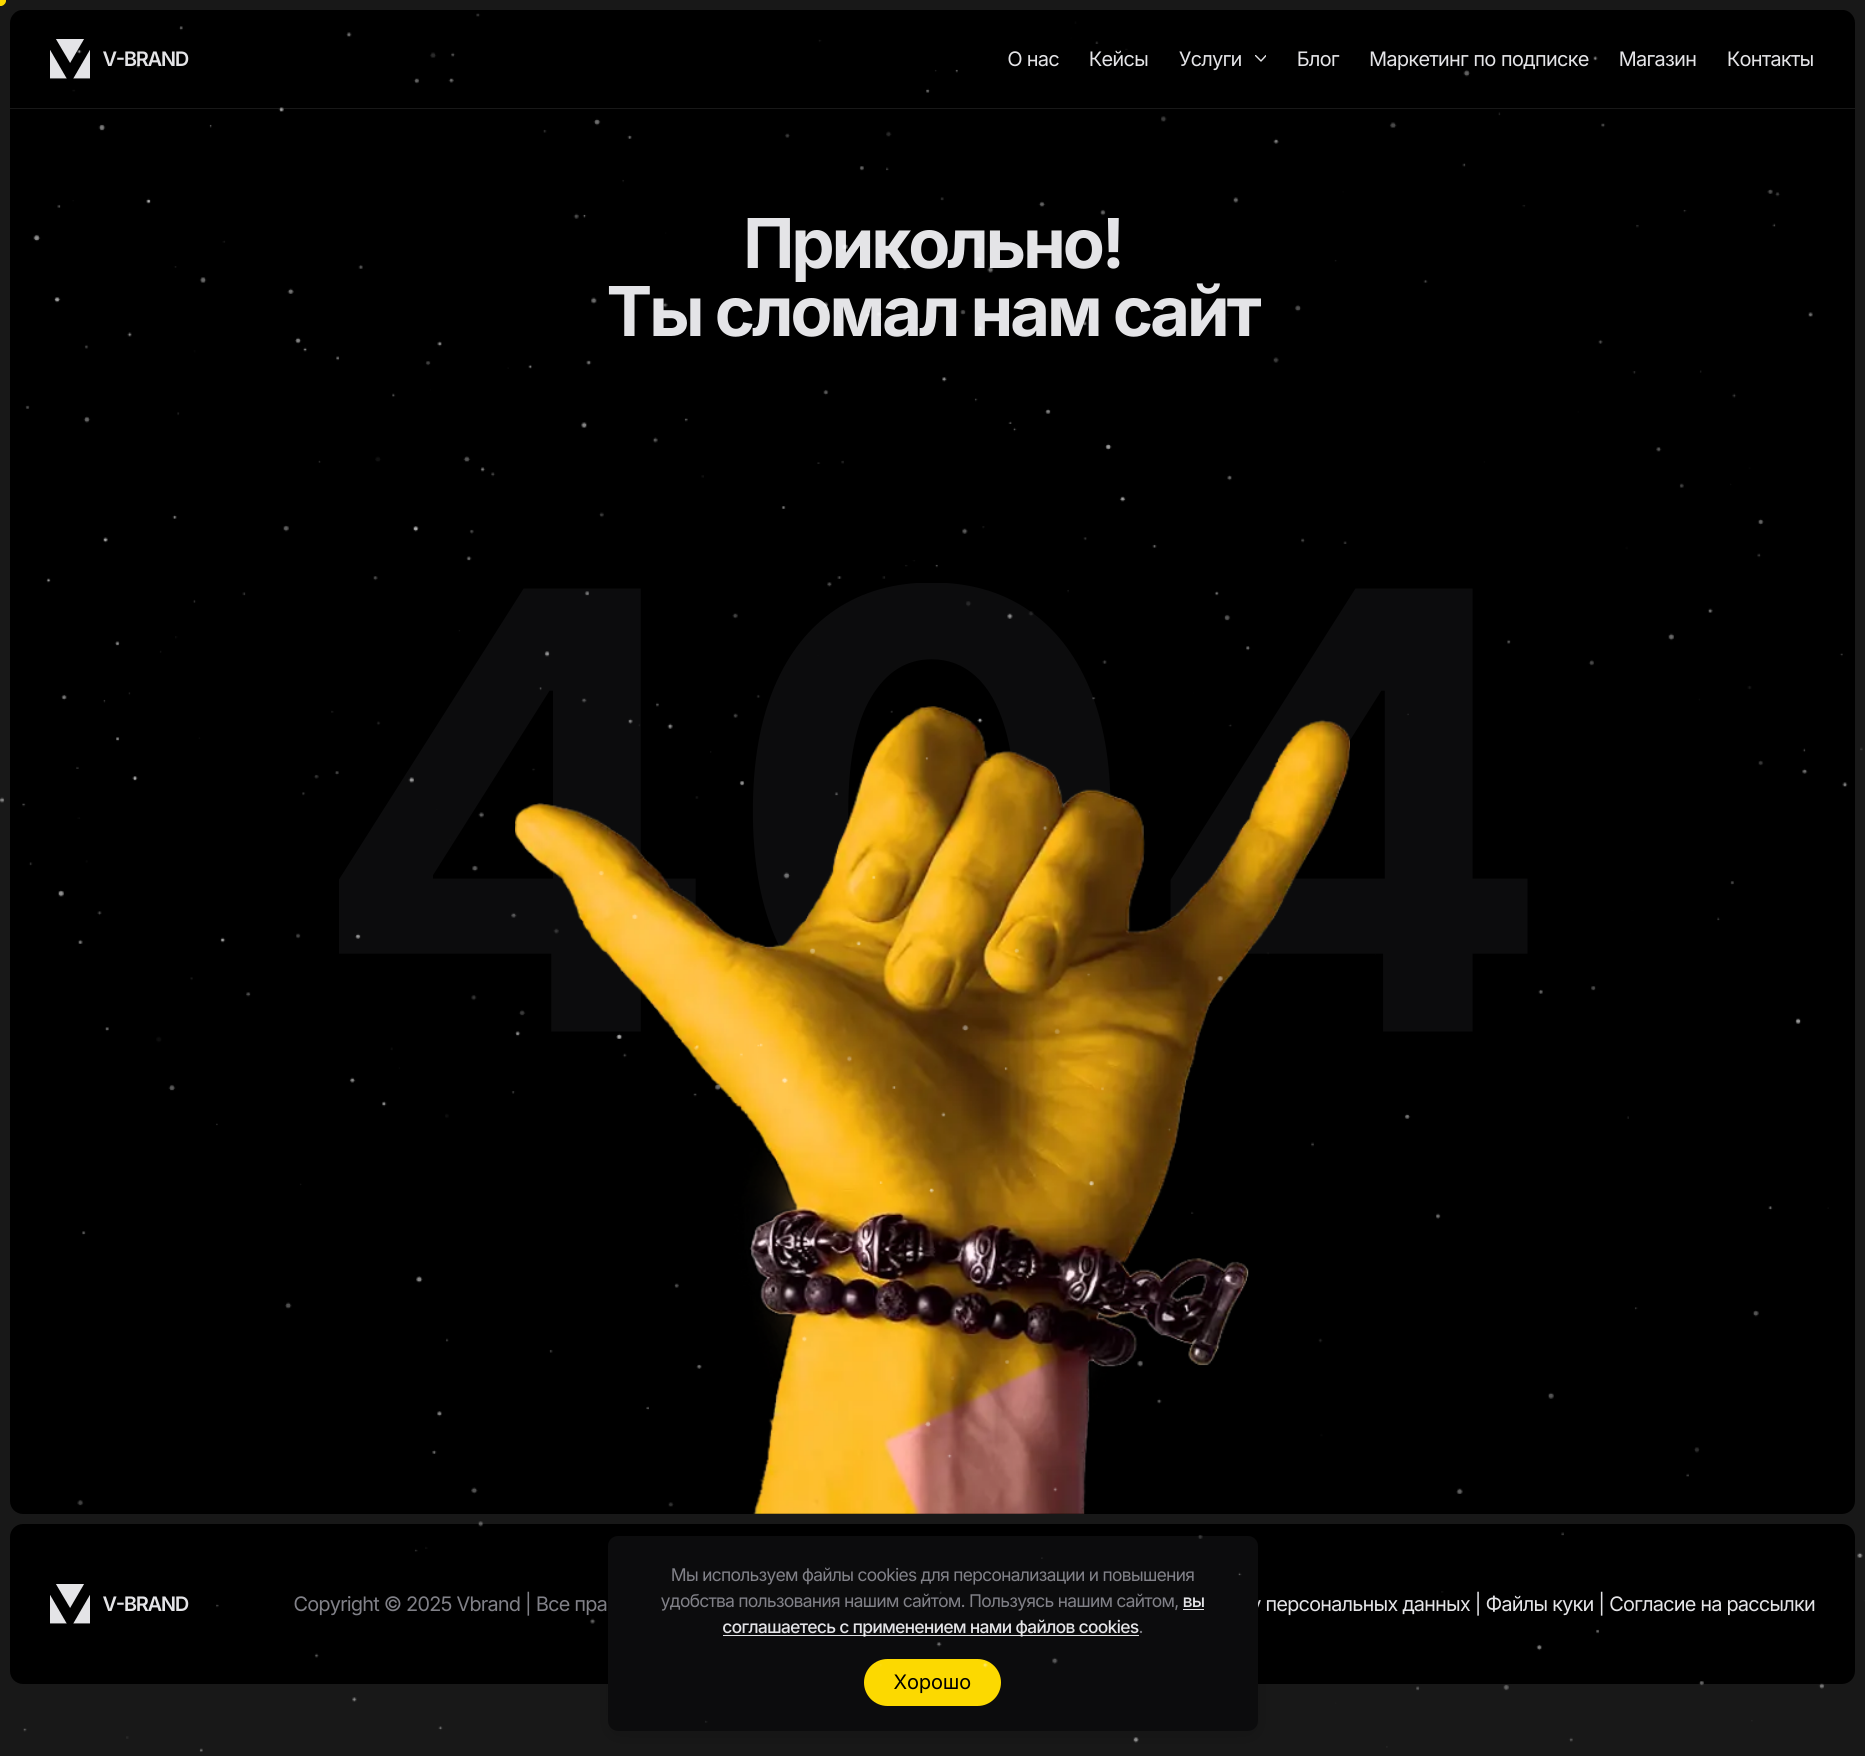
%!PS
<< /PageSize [1865 1756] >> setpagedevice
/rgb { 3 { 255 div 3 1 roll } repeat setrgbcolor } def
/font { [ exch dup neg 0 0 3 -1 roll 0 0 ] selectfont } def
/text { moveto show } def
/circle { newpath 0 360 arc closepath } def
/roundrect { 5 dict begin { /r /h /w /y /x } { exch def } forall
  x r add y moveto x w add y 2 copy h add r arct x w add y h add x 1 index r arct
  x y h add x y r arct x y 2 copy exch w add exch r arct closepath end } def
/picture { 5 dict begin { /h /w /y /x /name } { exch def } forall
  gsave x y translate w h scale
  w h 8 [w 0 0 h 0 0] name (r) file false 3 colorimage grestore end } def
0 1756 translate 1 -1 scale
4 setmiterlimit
24 24 24 rgb
0 0 1865 1756 rectfill
252 217 0 rgb
0 0 6 circle fill
0 0 0 rgb
23 10 moveto 1819 0 rlineto 7 0 13 6 13 13 rcurveto 0 86 rlineto -1845 0 rlineto 0 -86 rlineto 0 -7 6 -13 13 -13 rcurveto closepath fill
24 24 24 rgb
10 108 1845 1 rectfill
(img_02.rgb) 50 39 40 40 picture
gsave
1255 55 11 8 rectclip
228 228 231 rgb
1.4 setlinewidth
1 setlinecap
1 setlinejoin
1266 55.5 moveto -5 5.5 rlineto -5.5 -5.5 rlineto stroke
grestore
0 0 0 rgb
10 109 moveto 1845 0 rlineto 0 1392 rlineto 0 7 -6 13 -13 13 rcurveto -1819 0 rlineto -7 0 -13 -6 -13 -13 rcurveto closepath fill
(img_03.rgb) 339 583 1189 449 picture
(img_04.rgb) 515 706 835 808 picture
10 1524 1845 160 13 roundrect fill
(img_02.rgb) 50 1584 40 40 picture
12 12 13 rgb
608 1536 650 195 10 roundrect fill
228 228 231 rgb
1183 1609 21 1 rectfill
723 1635 416 1 rectfill
252 217 0 rgb
864 1659 137 47 23.5 roundrect fill
/Inter-SemiBold 20 font
228 228 231 rgb
103 66 moveto -1.25 0 (V-BRAND) ashow
/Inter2-Regular 20 font
1007 66 moveto -0.75 0 (О нас) ashow
1089 66 moveto -0.75 0 (Кейсы) ashow
1179 66 moveto -0.75 0 (Услуги) ashow
1297 66 moveto -0.75 0 (Блог) ashow
1369 66 moveto -0.75 0 (Маркетинг по подписке) ashow
1619 66 moveto -0.75 0 (Магазин) ashow
1727 66 moveto -0.75 0 (Контакты) ashow
/Inter-Bold 68.75 font
743 268 moveto -3.1 0 (Прикольно!) ashow
606 336 moveto -3.1 0 (Ты сломал нам сайт) ashow
/Inter-SemiBold 20 font
103 1611 moveto -1.25 0 (V-BRAND) ashow
/Inter-Regular 20 font
129 129 136 rgb
293 1611 moveto -0.75 0 (Copyright © 2025 Vbrand | Все пра) ashow
228 228 231 rgb
1265 1611 moveto -0.75 0 (персональных данных | Файлы куки | Согласие на рассылки) ashow
/Inter2-Regular 17.5 font
129 129 136 rgb
671 1581 moveto -0.75 0 (Мы используем файлы cookies для персонализации и повышения) ashow
661 1607 moveto -0.75 0 (удобства пользования нашим сайтом. Пользуясь нашим сайтом,) ashow
/Inter-Medium 17.5 font
228 228 231 rgb
1183 1607 moveto -0.75 0 (вы) ashow
722 1633 moveto -0.75 0 (соглашаетесь с применением нами файлов cookies) ashow
/Inter2-Regular 17.5 font
129 129 136 rgb
1138 1633 moveto -0.75 0 (.) ashow
/Inter2-Regular 20 font
0 0 0 rgb
(Хорошо) 893 1689 text
(img_01.rgb) 0 13 1865 1739 picture
showpage
